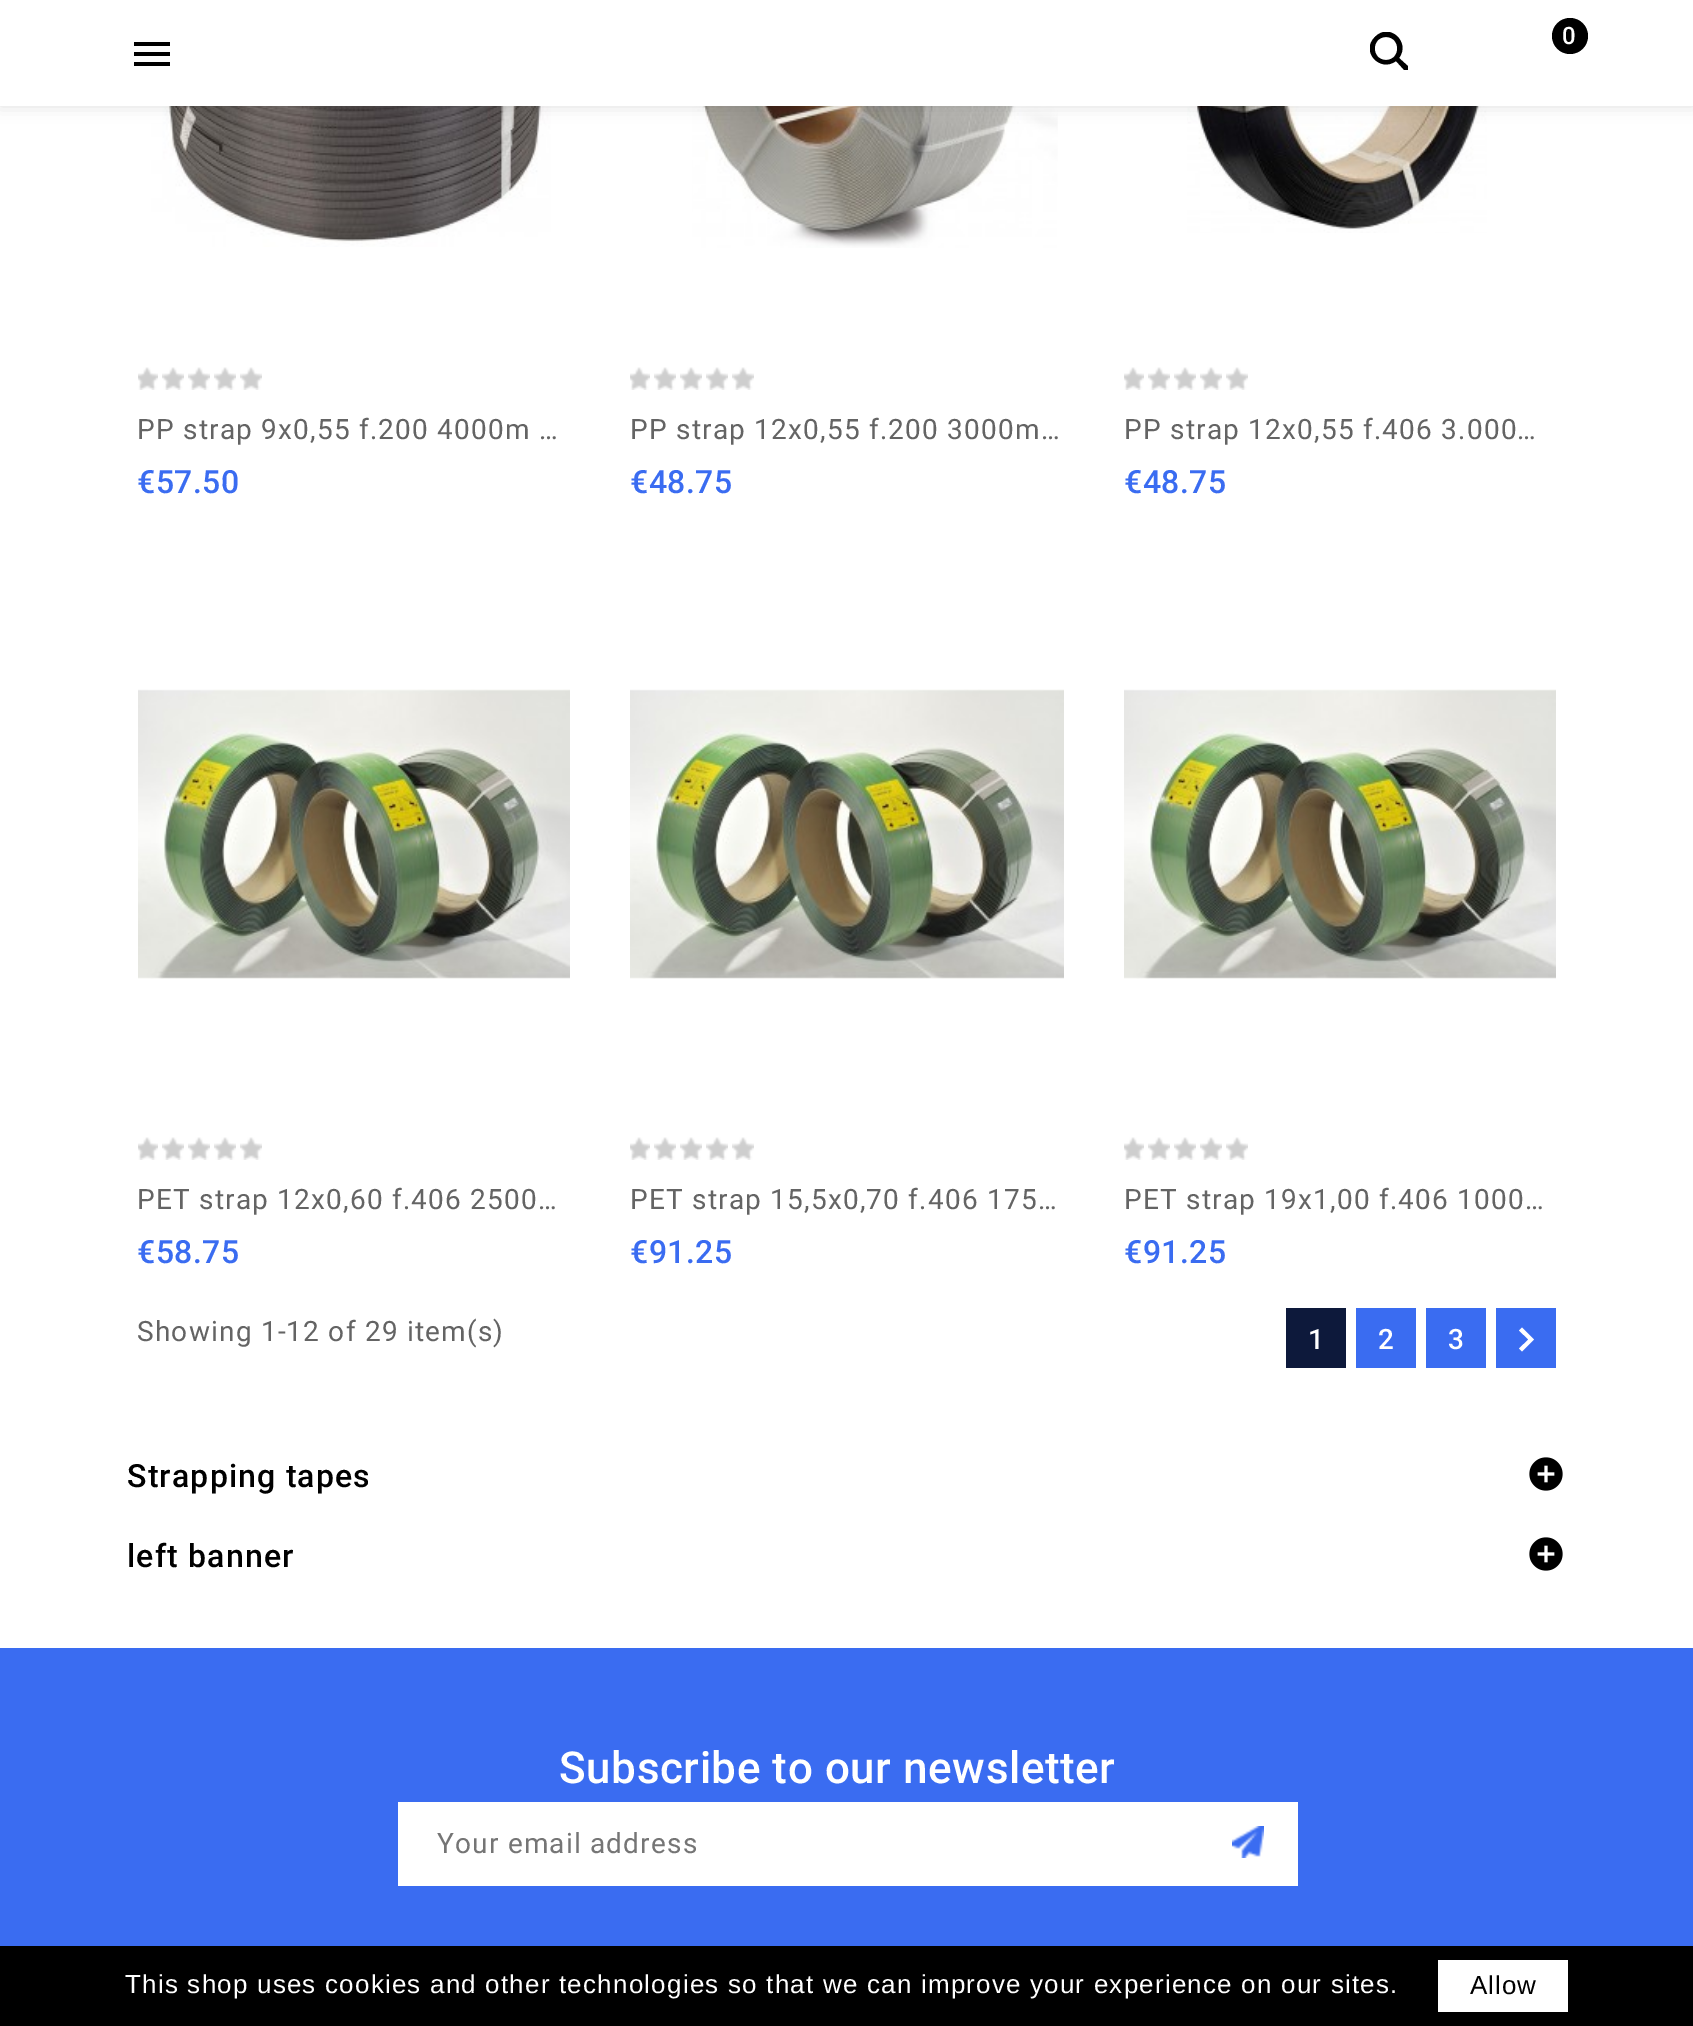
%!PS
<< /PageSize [1693 2026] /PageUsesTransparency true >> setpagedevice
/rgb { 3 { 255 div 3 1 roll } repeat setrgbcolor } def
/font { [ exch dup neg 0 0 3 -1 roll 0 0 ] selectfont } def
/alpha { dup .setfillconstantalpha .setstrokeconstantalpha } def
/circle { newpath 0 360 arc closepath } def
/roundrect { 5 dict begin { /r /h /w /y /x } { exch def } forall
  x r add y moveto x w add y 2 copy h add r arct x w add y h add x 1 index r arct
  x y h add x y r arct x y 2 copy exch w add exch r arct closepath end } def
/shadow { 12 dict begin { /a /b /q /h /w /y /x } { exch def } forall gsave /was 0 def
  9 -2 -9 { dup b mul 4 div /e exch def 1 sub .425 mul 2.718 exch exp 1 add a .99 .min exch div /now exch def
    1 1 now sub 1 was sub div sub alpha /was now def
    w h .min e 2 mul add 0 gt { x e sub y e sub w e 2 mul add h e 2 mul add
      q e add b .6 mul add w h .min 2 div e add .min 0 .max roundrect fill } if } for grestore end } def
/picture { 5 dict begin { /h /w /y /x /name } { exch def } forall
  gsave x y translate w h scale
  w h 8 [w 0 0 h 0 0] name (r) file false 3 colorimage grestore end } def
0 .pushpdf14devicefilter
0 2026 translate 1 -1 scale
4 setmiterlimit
255 255 255 rgb
0 0 1693 2026 rectfill
(img_01.rgb) 151 106 400 141 picture
(img_04.rgb) 692 106 366 142 picture
(img_05.rgb) 1187 106 300 127 picture
0 0 0 rgb
0 0 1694 106 0 8 0.12 shadow
255 255 255 rgb
0 0 1693 106 rectfill
0 0 0 rgb
134 42 moveto 36 0 rlineto 0 4 rlineto -36 0 rlineto closepath 134 56 moveto 0 -4 rlineto 36 0 rlineto 0 4 rlineto closepath 134 66 moveto 0 -4 rlineto 36 0 rlineto 0 4 rlineto closepath fill
gsave
1370 32 38 38 rectclip
1399 58 moveto 12 -16 -10 -36 -24 -21 rcurveto -15 14 5 36 21 24 rcurveto 10 11 rlineto 4 -4 rlineto closepath 1386 60 moveto -15 0 -15 -23 0 -23 rcurveto 15 0 15 23 0 23 rcurveto closepath fill
grestore
1570 36 18 circle fill
(img_02.rgb) 138 367 20 23 picture
(img_03.rgb) 162 367 22 23 picture
(img_03.rgb) 188 367 22 23 picture
(img_03.rgb) 214 367 22 23 picture
(img_03.rgb) 240 367 22 23 picture
(img_02.rgb) 630 367 20 23 picture
(img_03.rgb) 654 367 22 23 picture
(img_03.rgb) 680 367 22 23 picture
(img_03.rgb) 706 367 22 23 picture
(img_03.rgb) 732 367 22 23 picture
(img_02.rgb) 1124 367 20 23 picture
(img_03.rgb) 1148 367 22 23 picture
(img_03.rgb) 1174 367 22 23 picture
(img_03.rgb) 1200 367 22 23 picture
(img_03.rgb) 1226 367 22 23 picture
(img_06.rgb) 138 689 432 290 picture
(img_02.rgb) 138 1137 20 23 picture
(img_03.rgb) 162 1137 22 23 picture
(img_03.rgb) 188 1137 22 23 picture
(img_03.rgb) 214 1137 22 23 picture
(img_03.rgb) 240 1137 22 23 picture
(img_07.rgb) 630 689 434 290 picture
(img_02.rgb) 630 1137 20 23 picture
(img_03.rgb) 654 1137 22 23 picture
(img_03.rgb) 680 1137 22 23 picture
(img_03.rgb) 706 1137 22 23 picture
(img_03.rgb) 732 1137 22 23 picture
(img_06.rgb) 1124 689 432 290 picture
(img_02.rgb) 1124 1137 20 23 picture
(img_03.rgb) 1148 1137 22 23 picture
(img_03.rgb) 1174 1137 22 23 picture
(img_03.rgb) 1200 1137 22 23 picture
(img_03.rgb) 1226 1137 22 23 picture
13 25 59 rgb
1286 1308 60 60 rectfill
58 108 241 rgb
1356 1308 60 60 rectfill
1426 1308 60 60 rectfill
1496 1308 60 60 rectfill
255 255 255 rgb
1519 1348.5 moveto 9.5 -9 rlineto -9.5 -9 rlineto 3 -3 rlineto 12 12 rlineto -12 12 rlineto closepath fill
(img_08.rgb) 1529 1457 34 34 picture
(img_08.rgb) 1529 1537 34 34 picture
58 108 241 rgb
0 1648 1693 298 rectfill
255 255 255 rgb
398 1802 900 84 rectfill
(img_09.rgb) 1232 1826 32 32 picture
0 0 0 rgb
0 1946 1693 80 rectfill
255 255 255 rgb
1438 1960 130 52 rectfill
/Roboto-Medium 24 font
1562 44 moveto 1.2 0 (0) ashow
/Roboto-Regular 28 font
100 100 100 rgb
137 439 moveto 1.2 0 (PP strap 9x0,55 f.200 4000m …) ashow
/Roboto-Medium 32 font
58 108 241 rgb
137 493 moveto 0.5 0 (€57.50) ashow
/Roboto-Regular 28 font
100 100 100 rgb
630 439 moveto 1.2 0 (PP strap 12x0,55 f.200 3000m…) ashow
/Roboto-Medium 32 font
58 108 241 rgb
630 493 moveto 0.5 0 (€48.75) ashow
/Roboto-Regular 28 font
100 100 100 rgb
1124 439 moveto 1.2 0 (PP strap 12x0,55 f.406 3.000…) ashow
/Roboto-Medium 32 font
58 108 241 rgb
1124 493 moveto 0.5 0 (€48.75) ashow
/Roboto-Regular 28 font
100 100 100 rgb
137 1209 moveto 1.2 0 (PET strap 12x0,60 f.406 2500…) ashow
/Roboto-Medium 32 font
58 108 241 rgb
137 1263 moveto 0.5 0 (€58.75) ashow
/Roboto-Regular 28 font
100 100 100 rgb
630 1209 moveto 1.2 0 (PET strap 15,5x0,70 f.406 175…) ashow
/Roboto-Medium 32 font
58 108 241 rgb
630 1263 moveto 0.5 0 (€91.25) ashow
/Roboto-Regular 28 font
100 100 100 rgb
1124 1209 moveto 1.2 0 (PET strap 19x1,00 f.406 1000…) ashow
/Roboto-Medium 32 font
58 108 241 rgb
1124 1263 moveto 0.5 0 (€91.25) ashow
/Roboto-Regular 28 font
100 100 100 rgb
137 1341 moveto 1.2 0 (Showing 1-12 of 29 item\(s\)) ashow
/Roboto-Medium 28 font
255 255 255 rgb
1308 1349 moveto 1.2 0 (1) ashow
1378 1349 moveto 1.2 0 (2) ashow
1448 1349 moveto 1.2 0 (3) ashow
/Roboto-Medium 32 font
0 0 0 rgb
127 1487 moveto 1.2 0 (Strapping tapes) ashow
127 1567 moveto 1.2 0 (left banner) ashow
/Roboto-Medium 44 font
255 255 255 rgb
559 1783 moveto 0.6 0 (Subscribe to our newsletter) ashow
/Roboto-Regular 28 font
117 117 117 rgb
437 1853 moveto 1.2 0 (Your email address) ashow
/LiberationSans-Regular 26 font
255 255 255 rgb
125 1993 moveto 1.2 0 (This shop uses cookies and other technologies so that we can improve your experience on our sites.) ashow
0 0 0 rgb
1470 1994 moveto 1 0 (Allow) ashow
.poppdf14devicefilter showpage
